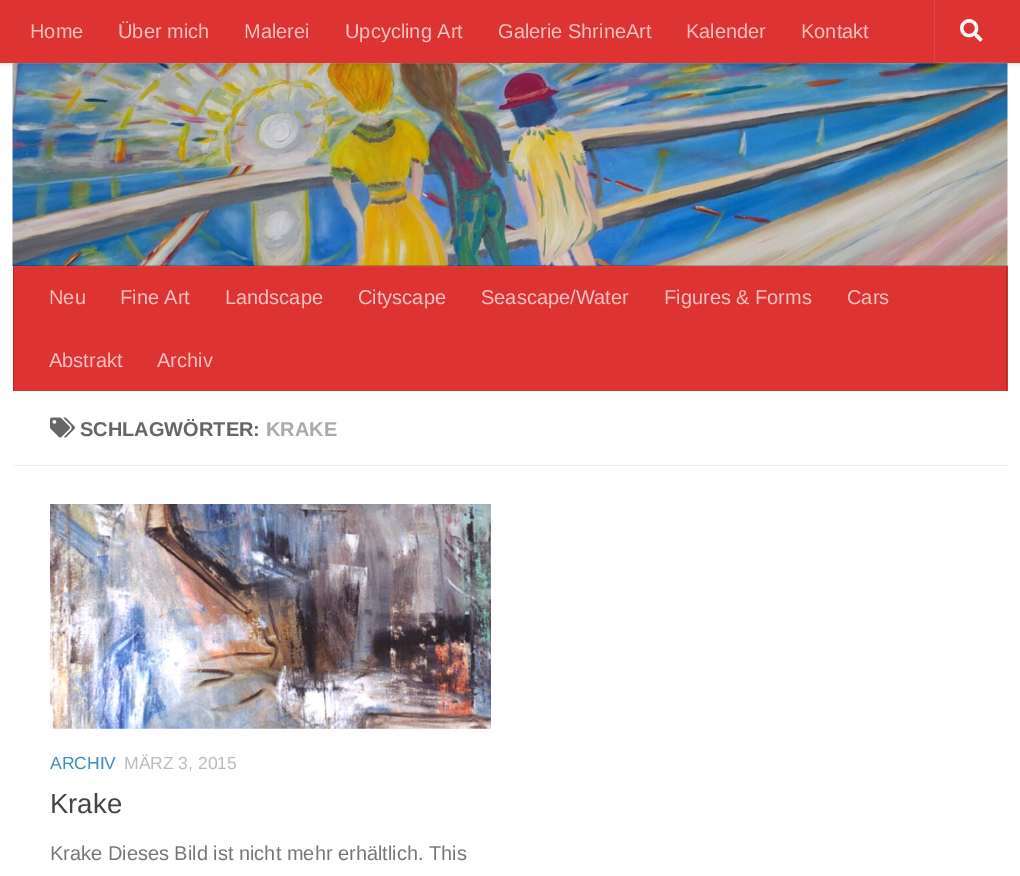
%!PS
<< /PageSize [1020 876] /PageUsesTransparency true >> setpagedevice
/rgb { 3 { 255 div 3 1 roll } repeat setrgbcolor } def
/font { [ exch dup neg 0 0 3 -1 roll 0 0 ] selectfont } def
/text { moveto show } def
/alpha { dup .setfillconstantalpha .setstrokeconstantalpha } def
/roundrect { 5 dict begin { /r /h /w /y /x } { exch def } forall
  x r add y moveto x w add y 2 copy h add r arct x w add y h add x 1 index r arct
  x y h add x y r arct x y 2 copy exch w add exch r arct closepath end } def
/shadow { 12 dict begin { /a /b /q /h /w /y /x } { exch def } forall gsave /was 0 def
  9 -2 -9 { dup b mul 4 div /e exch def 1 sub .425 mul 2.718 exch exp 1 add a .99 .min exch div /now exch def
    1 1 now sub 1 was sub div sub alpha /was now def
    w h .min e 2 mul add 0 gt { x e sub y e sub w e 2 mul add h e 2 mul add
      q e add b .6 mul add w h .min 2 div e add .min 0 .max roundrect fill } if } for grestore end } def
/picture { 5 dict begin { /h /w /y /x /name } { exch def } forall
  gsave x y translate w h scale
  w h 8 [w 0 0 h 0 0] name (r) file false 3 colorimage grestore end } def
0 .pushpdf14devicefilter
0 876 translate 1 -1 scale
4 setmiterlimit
255 255 255 rgb
0 0 1020 876 rectfill
(img_02.rgb) 12 63 996 204 picture
0.15 alpha
12 63 996 1 rectfill
1 alpha
0 0 0 rgb
0 0 1020 63 0 3 0.2 shadow
221 51 51 rgb
0 0 1020 63 rectfill
224 71 71 rgb
934 0 moveto 0 63 rlineto 72 0 rlineto 0 -1 rlineto -71 0 rlineto 0 -62 rlineto closepath fill
(img_01.rgb) 960 19 23 23 picture
0.2 alpha
0 0 0 rgb
13 265 moveto 0 1 rlineto 995 0 rlineto 0 124 rlineto 0 -125 rlineto closepath fill
1 alpha
221 51 51 rgb
14 266 994 125 rectfill
177 41 41 rgb
1006 266 1 125 rectfill
13 266 1 125 rectfill
0.05 alpha
255 255 255 rgb
13 266 995 1 rectfill
1 alpha
238 238 238 rgb
13 465 995 1 rectfill
(img_03.rgb) 50 417 25 21 picture
(img_04.rgb) 50 504 441 225 picture
/LiberationSans-Regular 20 font
245 194 194 rgb
(Home) 30 38 text
(Über mich) 118 38 text
(Malerei) 244 38 text
(Upcycling Art) 345 38 text
(Galerie ShrineArt) 498 38 text
(Kalender) 686 38 text
(Kontakt) 801 38 text
(Neu) 49 304 text
(Fine Art) 120 304 text
(Landscape) 225 304 text
(Cityscape) 358 304 text
(Seascape/Water) 481 304 text
(Figures & Forms) 664 304 text
(Cars) 847 304 text
(Abstrakt) 49 367 text
(Archiv) 157 367 text
/LiberationSans-Bold 20 font
102 102 102 rgb
(SCHLAGWÖRTER:) 80 436 text
170 170 170 rgb
(KRAKE) 266 436 text
/LiberationSans-Regular 17.5 font
59 141 189 rgb
(ARCHIV) 50 769 text
187 187 187 rgb
(MÄRZ 3, 2015) 124 769 text
/LiberationSans-Regular 27.5 font
68 68 68 rgb
(Krake) 50 813 text
/LiberationSans-Regular 20 font
118 118 118 rgb
(Krake Dieses Bild ist nicht mehr erhältlich. This) 50 860 text
.poppdf14devicefilter showpage
